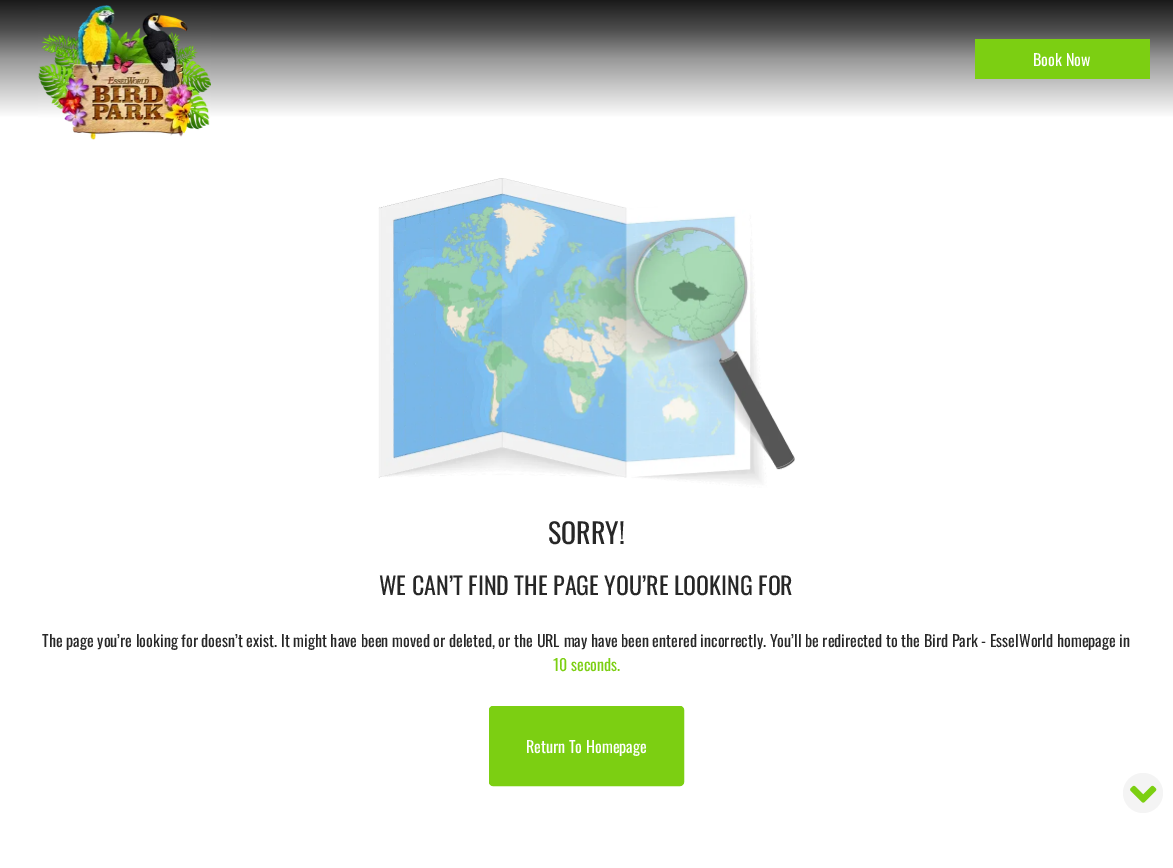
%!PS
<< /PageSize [1173 868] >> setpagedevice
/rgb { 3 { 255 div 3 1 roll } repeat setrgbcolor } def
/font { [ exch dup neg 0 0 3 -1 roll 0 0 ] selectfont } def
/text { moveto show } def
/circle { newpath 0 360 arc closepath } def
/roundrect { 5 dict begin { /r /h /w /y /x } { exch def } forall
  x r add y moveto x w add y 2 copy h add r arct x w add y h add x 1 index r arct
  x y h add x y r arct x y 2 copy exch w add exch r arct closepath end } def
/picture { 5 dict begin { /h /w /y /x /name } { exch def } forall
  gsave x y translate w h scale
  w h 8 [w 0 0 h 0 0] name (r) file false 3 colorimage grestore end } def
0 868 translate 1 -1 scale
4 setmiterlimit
255 255 255 rgb
0 0 1173 868 rectfill
gsave 0 0 moveto 1173 0 rlineto 0 117 rlineto -1173 0 rlineto closepath clip newpath
<< /ShadingType 2 /ColorSpace /DeviceRGB /Coords [587 0 587 118] /Extend [true true] /Function << /FunctionType 3 /Domain [0 1] /Functions [<< /FunctionType 2 /Domain [0 1] /C0 [0.102 0.102 0.102] /C1 [0.302 0.302 0.302] /N 1 >> << /FunctionType 2 /Domain [0 1] /C0 [0.302 0.302 0.302] /C1 [0.6 0.6 0.6] /N 1 >> << /FunctionType 2 /Domain [0 1] /C0 [0.6 0.6 0.6] /C1 [0.8 0.8 0.8] /N 1 >> << /FunctionType 2 /Domain [0 1] /C0 [0.8 0.8 0.8] /C1 [1 1 1] /N 1 >>] /Bounds [0.25 0.5 0.75] /Encode [0 1 0 1 0 1 0 1] >> >> shfill grestore
(img_01.rgb) 38 5 173 135 picture
124 207 18 rgb
975 39 175 40 rectfill
(img_02.rgb) 378 178 417 310 picture
489.5 706.5 194 79 3.5 roundrect gsave fill grestore
stroke
244 244 244 rgb
1143 793 20 circle fill
(img_03.rgb) 1130 785 27 18 picture
/Oswald-Regular 16 font
255 255 255 rgb
(Book Now) 1033 66 text
/Oswald-Regular 28 font
39 39 39 rgb
(SORRY!) 548 544 text
/Oswald-Regular 24 font
(WE CAN’T FIND THE PAGE YOU’RE LOOKING FOR) 379 595 text
/Oswald-Regular 16 font
(The page you’re looking for doesn’t exist. It might have been moved or deleted, or the URL may have been entered incorrectly. You’ll be redirected to the Bird Park - EsselWorld homepage in) 42 647 text
124 207 18 rgb
(10 seconds.) 553 671 text
255 255 255 rgb
(Return To Homepage) 526 753 text
showpage
